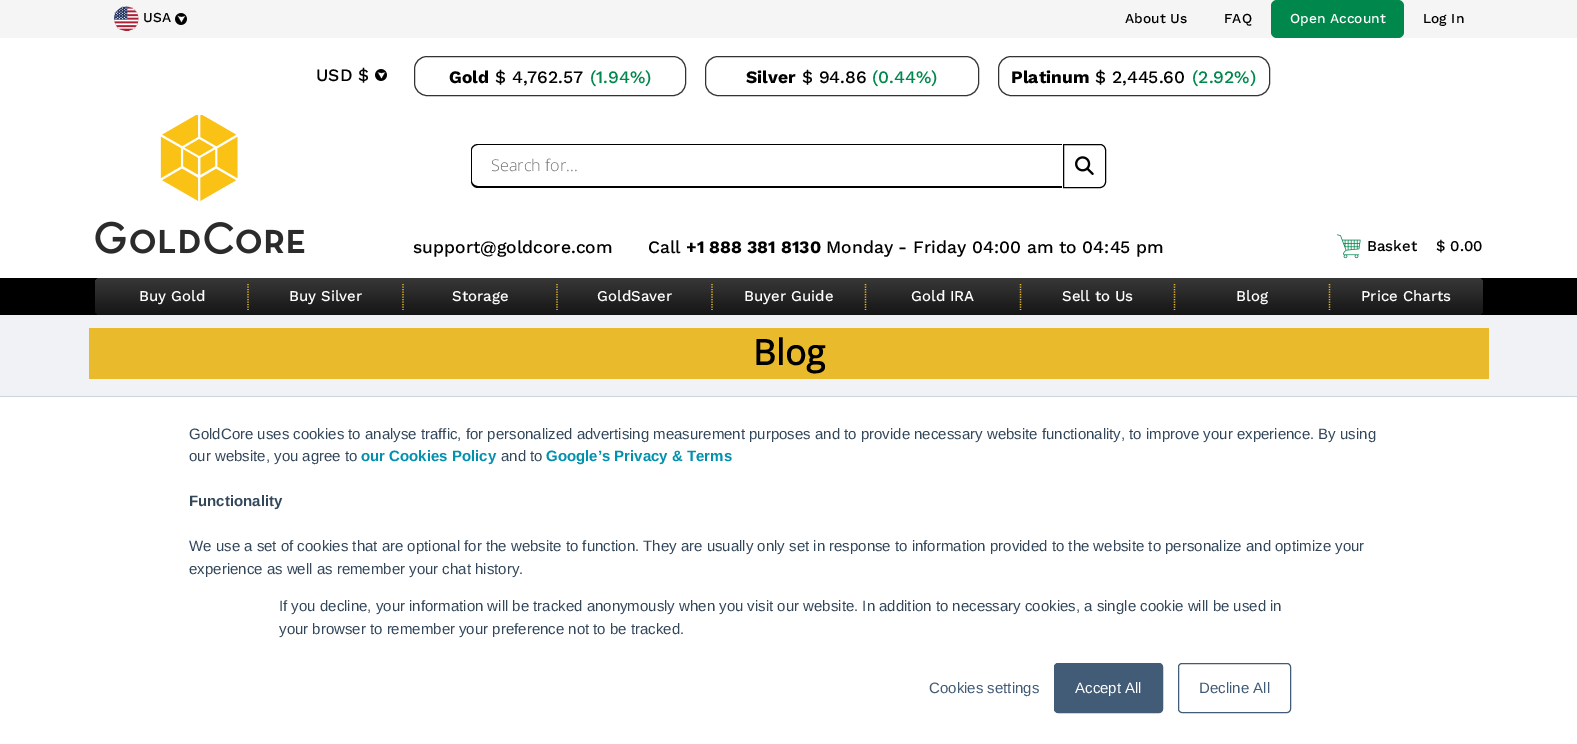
%!PS
<< /PageSize [1577 744] >> setpagedevice
/rgb { 3 { 255 div 3 1 roll } repeat setrgbcolor } def
/font { [ exch dup neg 0 0 3 -1 roll 0 0 ] selectfont } def
/text { moveto show } def
/roundrect { 5 dict begin { /r /h /w /y /x } { exch def } forall
  x r add y moveto x w add y 2 copy h add r arct x w add y h add x 1 index r arct
  x y h add x y r arct x y 2 copy exch w add exch r arct closepath end } def
/picture { 5 dict begin { /h /w /y /x /name } { exch def } forall
  gsave x y translate w h scale
  w h 8 [w 0 0 h 0 0] name (r) file false 3 colorimage grestore end } def
0 744 translate 1 -1 scale
4 setmiterlimit
241 242 245 rgb
0 0 1577 744 rectfill
245 245 245 rgb
0 0 1577 38 rectfill
(img_01.rgb) 114 6 25 25 picture
(img_02.rgb) 175 13 12 12 picture
0 136 76 rgb
1271 0 133 38 6 roundrect fill
255 255 255 rgb
0 38 1577 240 rectfill
(img_03.rgb) 375 69 12 12 picture
51 51 51 rgb
414.5 56.5 271 39 12.5 roundrect stroke
705.5 56.5 273 39 12.5 roundrect stroke
998.5 56.5 271 39 12.5 roundrect stroke
(img_04.rgb) 95 115 210 140 picture
0 0 0 rgb
478 144 moveto 584 0 rlineto 0 44 rlineto -584 0 rlineto -4 0 -7 -3 -7 -7 rcurveto 0 -31 rlineto 0 -3 3 -6 7 -6 rcurveto closepath 478 145 moveto 584 0 rlineto 0 41 rlineto -584 0 rlineto -3 0 -6 -2 -6 -5 rcurveto 0 -31 rlineto 0 -3 3 -5 6 -5 rcurveto closepath eofill
1063.5 144.5 moveto 36.5 0 rlineto 3 0 5.5 2.5 5.5 5.5 rcurveto 0 32 rlineto 0 3 -2.5 5.5 -5.5 5.5 rcurveto -36.5 0 rlineto closepath stroke
(img_05.rgb) 1075 156 19 19 picture
(img_06.rgb) 1337 234 24 25 picture
0 278 1577 37 rectfill
gsave 95 278 1388 37 6 roundrect clip newpath
<< /ShadingType 2 /ColorSpace /DeviceRGB /Coords [789 277 789 315] /Extend [true true] /Function << /FunctionType 2 /Domain [0 1] /C0 [0.224 0.224 0.224] /C1 [0.082 0.082 0.082] /N 1 >> >> shfill grestore
233 186 43 rgb
1.2 setlinewidth
[1.25 1.25] 0 setdash
248 284 moveto 0 26 rlineto stroke
403 284 moveto 0 26 rlineto stroke
557 284 moveto 0 26 rlineto stroke
712 284 moveto 0 26 rlineto stroke
865.5 284 moveto 0 26 rlineto stroke
1020.5 284 moveto 0 26 rlineto stroke
1174.5 284 moveto 0 26 rlineto stroke
1329.5 284 moveto 0 26 rlineto stroke
89 328 1400 51 rectfill
255 255 255 rgb
0 397 1577 347 rectfill
203 214 226 rgb
0 396 1577 1 rectfill
66 91 118 rgb
1054.5 663.5 108 49 3.5 roundrect gsave fill grestore
1 setlinewidth
[] 0 setdash
stroke
1178.5 663.5 112 49 3.5 roundrect stroke
/WorkSans-Medium 13.75 font
0 0 0 rgb
(USA) 143 22 text
(About Us) 1125 23 text
(FAQ) 1224 23 text
255 255 255 rgb
(Open Account) 1290 23 text
0 0 0 rgb
(Log In) 1423 23 text
/WorkSans-Medium 17.5 font
(USD $) 316 81 text
/WorkSans-Bold 17.5 font
(Gold) 449 83 text
/WorkSans-Medium 17.5 font
($ 4,762.57) 495 83 text
0 136 76 rgb
(\(1.94%\)) 590 83 text
/WorkSans-Bold 17.5 font
0 0 0 rgb
(Silver) 746 83 text
/WorkSans-Medium 17.5 font
($ 94.86) 802 83 text
0 136 76 rgb
(\(0.44%\)) 872 83 text
/WorkSans-Bold 17.5 font
0 0 0 rgb
(Platinum) 1011 83 text
/WorkSans-Medium 17.5 font
($ 2,445.60) 1095 83 text
0 136 76 rgb
(\(2.92%\)) 1192 83 text
/OpenSans-Light 16.25 font
117 117 117 rgb
(Search for...) 491 171 text
/WorkSans-Medium 17.5 font
0 0 0 rgb
(support@goldcore.com) 413 253 text
(Call) 648 253 text
/WorkSans-Bold 17.5 font
(+1 888 381 8130) 686 253 text
/WorkSans-Medium 17.5 font
(Monday - Friday 04:00 am to 04:45 pm) 826 253 text
/WorkSans-Medium 15 font
(Basket) 1367 251 text
($ 0.00) 1436 251 text
255 255 255 rgb
(Buy Gold) 139 301 text
(Buy Silver) 289 301 text
(Storage) 452 301 text
(GoldSaver) 597 301 text
(Buyer Guide) 744 301 text
(Gold IRA) 911 301 text
(Sell to Us) 1062 301 text
(Blog) 1236 301 text
(Price Charts) 1361 301 text
/OpenSans-Bold 35 font
0 0 0 rgb
(Blog) 753 365 text
/LiberationSans-Regular 15 font
51 71 91 rgb
(GoldCore uses cookies to analyse traffic, for personalized advertising measurement purposes and to provide necessary website functionality, to improve your experience. By using) 189 439 text
(our website, you agree to) 189 461 text
/LiberationSans-Bold 15 font
0 145 174 rgb
(our Cookies Policy) 361 461 text
/LiberationSans-Regular 15 font
51 71 91 rgb
(and to) 501 461 text
/LiberationSans-Bold 15 font
0 145 174 rgb
(Google’s Privacy & Terms) 546 461 text
51 71 91 rgb
(Functionality) 189 506 text
/LiberationSans-Regular 15 font
(We use a set of cookies that are optional for the website to function. They are usually only set in response to information provided to the website to personalize and optimize your) 189 551 text
(experience as well as remember your chat history.) 189 574 text
(If you decline, your information will be tracked anonymously when you visit our website. In addition to necessary cookies, a single cookie will be used in) 279 611 text
(your browser to remember your preference not to be tracked.) 279 634 text
66 91 118 rgb
(Cookies settings) 929 693 text
255 255 255 rgb
(Accept All) 1075 693 text
66 91 118 rgb
(Decline All) 1199 693 text
showpage
